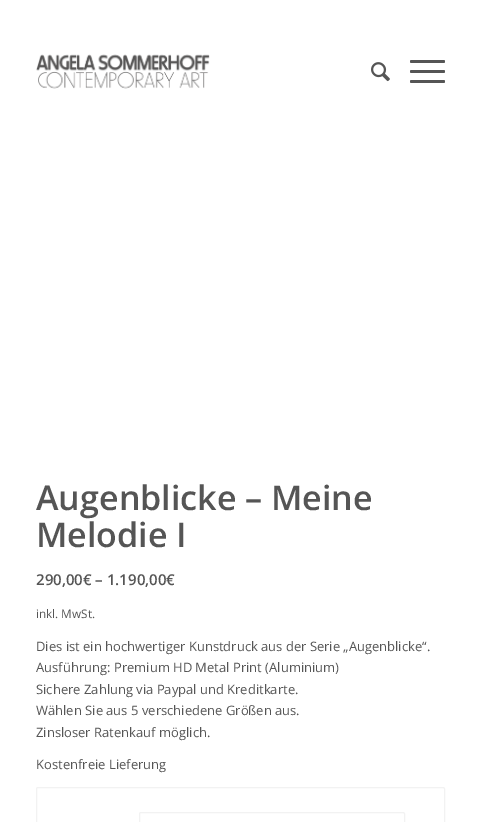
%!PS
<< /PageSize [481 822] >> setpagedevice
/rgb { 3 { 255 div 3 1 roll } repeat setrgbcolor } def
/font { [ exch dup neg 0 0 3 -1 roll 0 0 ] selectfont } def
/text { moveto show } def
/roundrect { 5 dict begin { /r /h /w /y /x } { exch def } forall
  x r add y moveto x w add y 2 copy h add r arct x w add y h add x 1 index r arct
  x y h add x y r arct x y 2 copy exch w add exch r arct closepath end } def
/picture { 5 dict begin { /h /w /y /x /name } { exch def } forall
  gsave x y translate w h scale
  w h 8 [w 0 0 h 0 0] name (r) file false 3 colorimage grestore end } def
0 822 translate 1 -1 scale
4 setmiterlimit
255 255 255 rgb
0 0 481 822 rectfill
(img_01.rgb) 36 54 174 35 picture
(img_02.rgb) 371 62 19 20 picture
85 85 85 rgb
410 70 35 3 1.5 roundrect fill
410 60 35 3 1.5 roundrect fill
410 80 35 3 1.5 roundrect fill
242 242 242 rgb
36.5 787.5 408 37 1.5 roundrect stroke
139.5 812.5 265 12 1.5 roundrect stroke
/OpenSans-SemiBold 34 font
85 85 85 rgb
(Augenblicke – Meine) 36 510 text
(Melodie I) 36 547 text
/OpenSans-SemiBold 15 font
(290,00€ – 1.190,00€) 36 585 text
/OpenSans-Regular 11.75 font
(inkl. MwSt.) 36 618 text
/OpenSans-Regular 13 font
(Dies ist ein hochwertiger Kunstdruck aus der Serie „Augenblicke“.) 36 651 text
(Ausführung: Premium HD Metal Print \(Aluminium\)) 36 672 text
(Sichere Zahlung via Paypal und Kreditkarte.) 36 694 text
(Wählen Sie aus 5 verschiedene Größen aus.) 36 715 text
(Zinsloser Ratenkauf möglich.) 36 737 text
(Kostenfreie Lieferung) 36 769 text
showpage
